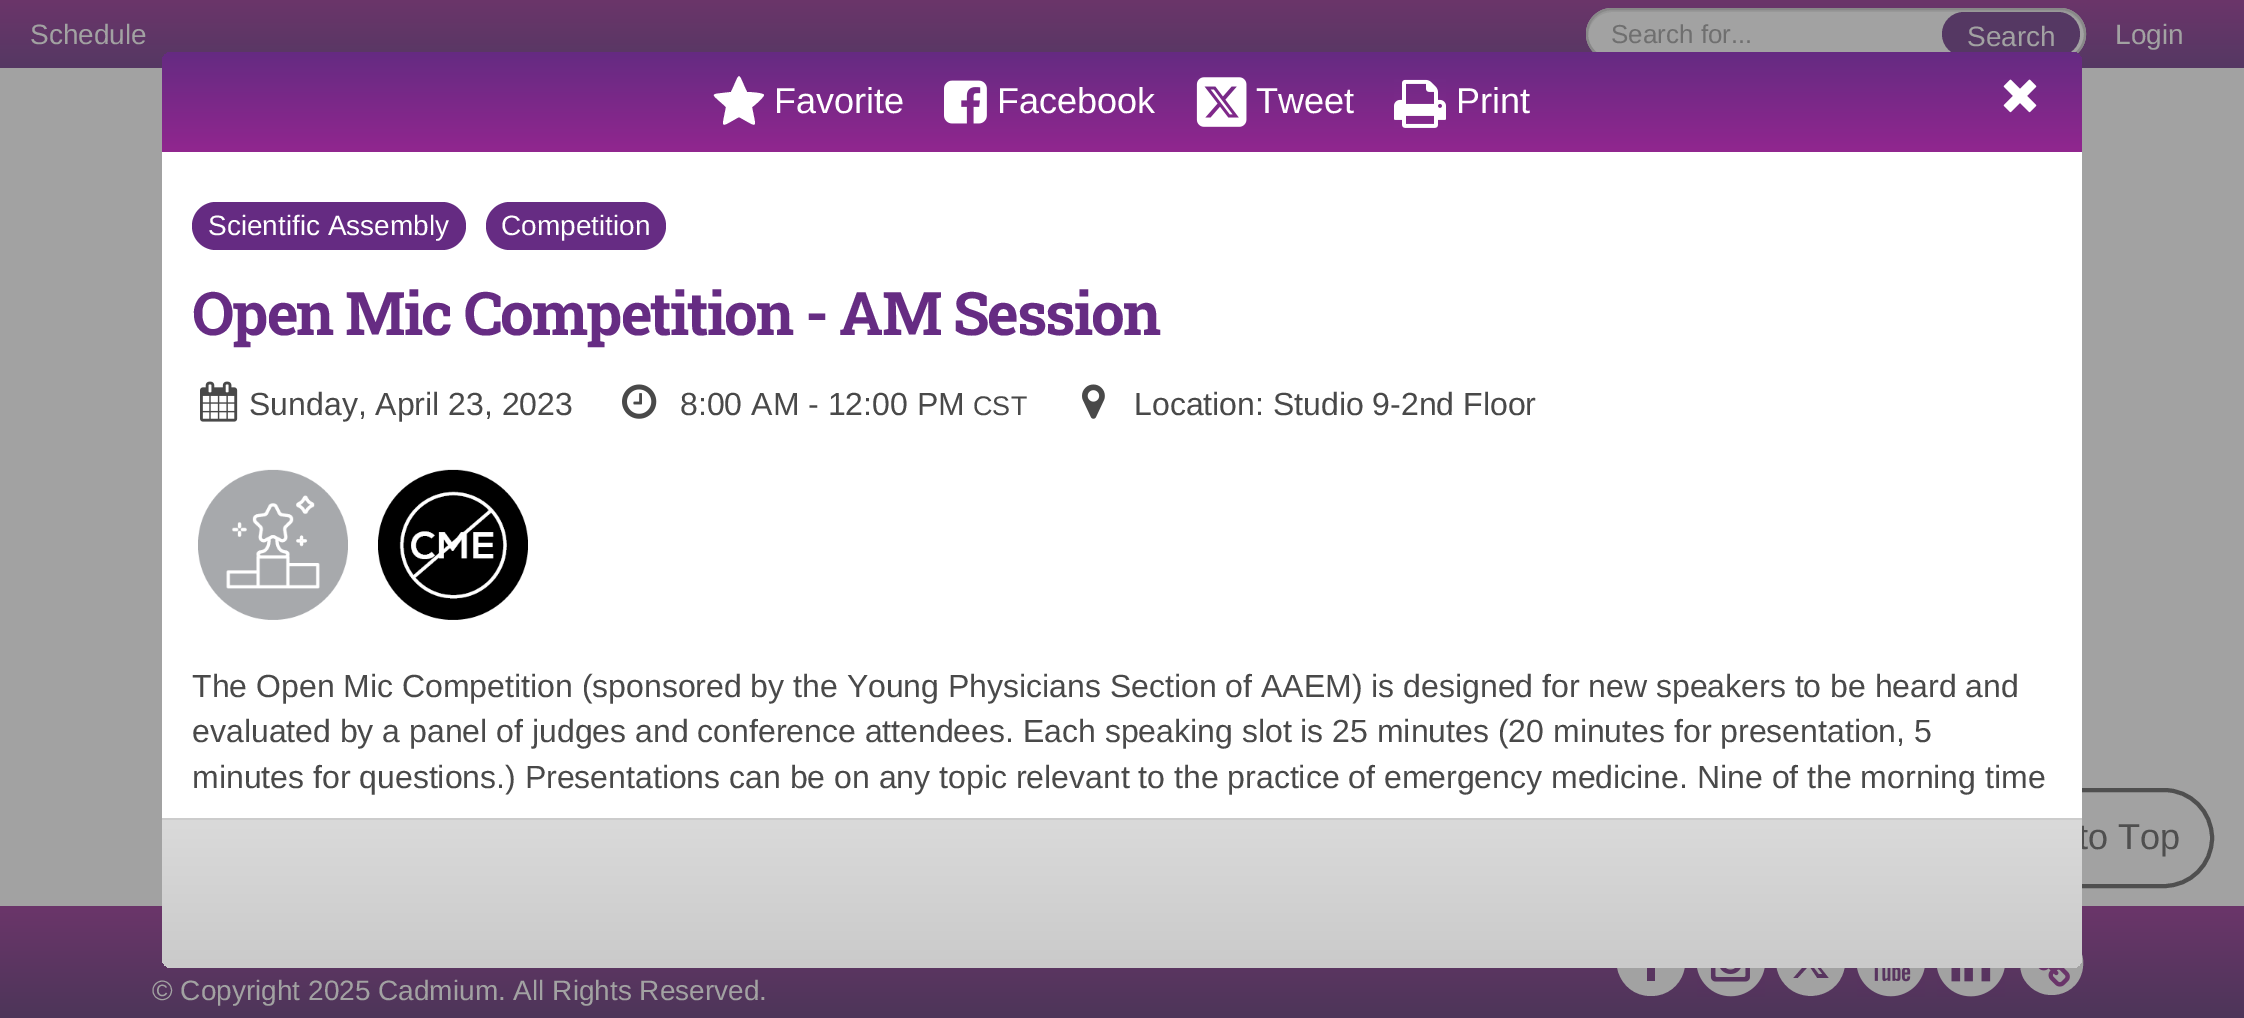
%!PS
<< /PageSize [2244 1018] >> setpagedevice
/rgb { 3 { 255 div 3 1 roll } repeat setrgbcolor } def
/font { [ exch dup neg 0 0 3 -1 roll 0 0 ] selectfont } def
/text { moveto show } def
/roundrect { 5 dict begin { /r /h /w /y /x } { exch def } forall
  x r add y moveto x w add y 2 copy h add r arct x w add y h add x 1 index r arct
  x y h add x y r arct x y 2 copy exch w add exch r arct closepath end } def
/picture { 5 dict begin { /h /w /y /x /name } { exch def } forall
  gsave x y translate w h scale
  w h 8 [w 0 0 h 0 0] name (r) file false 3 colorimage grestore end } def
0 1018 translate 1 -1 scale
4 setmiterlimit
162 162 162 rgb
0 0 2244 1018 rectfill
gsave 0 0 moveto 2244 0 rlineto 0 68 rlineto -2244 0 rlineto closepath clip newpath
<< /ShadingType 2 /ColorSpace /DeviceRGB /Coords [1122 0 1122 68] /Extend [true true] /Function << /FunctionType 2 /Domain [0 1] /C0 [0.42 0.208 0.416] /C1 [0.333 0.22 0.388] /N 1 >> >> shfill grestore
1586 8 500 52 26 roundrect fill
152 152 152 rgb
1612 12 moveto 448 0 rlineto 13 0 23 10 24 23 rcurveto 1 -13 -11 -25 -24 -25 rcurveto -448 0 rlineto -13 0 -25 12 -24 25 rcurveto 1 -13 11 -23 24 -23 rcurveto closepath fill
136 136 136 rgb
2 setlinewidth
1587 9 498 50 25 roundrect stroke
85 56 99 rgb
1942 12 138 44 22 roundrect fill
79 79 79 rgb
4 setlinewidth
1916 790 296 96 48 roundrect stroke
gsave 0 906 moveto 2244 0 rlineto 0 112 rlineto -2244 0 rlineto closepath clip newpath
<< /ShadingType 2 /ColorSpace /DeviceRGB /Coords [1122 906 1122 1018] /Extend [true true] /Function << /FunctionType 2 /Domain [0 1] /C0 [0.42 0.208 0.416] /C1 [0.302 0.208 0.349] /N 1 >> >> shfill grestore
162 162 162 rgb
1651 928 moveto 7 0 14 2 20 6 rcurveto 27 20 13 62 -20 62 rcurveto -33 0 -47 -42 -21 -62 rcurveto 6 -4 13 -6 21 -6 rcurveto closepath 1664 943 moveto -12 0 -17 -1 -17 13 rcurveto -7 0 rlineto 0 8 rlineto 7 0 rlineto 0 17 rlineto 8 0 rlineto 0 -17 rlineto 7 0 rlineto 0 -8 rlineto -7 0 rlineto 0 -7 3 -5 9 -5 rcurveto closepath fill
(img_10.rgb) 1697 968 68 29 picture
1799 948 moveto 3 0 rlineto 20 26 rlineto -3 0 rlineto closepath 1842 948 moveto 3 7 4 14 2 22 rcurveto -8 32 -52 35 -65 5 rcurveto -3 -7 -4 -14 -2 -21 rcurveto 6 -32 52 -37 65 -6 rcurveto closepath 1817 978 moveto 12 0 rlineto -15 -19 rlineto 13 -14 rlineto -6 0 rlineto -9 10 rlineto -8 -10 rlineto -12 0 rlineto 14 18 rlineto -13 15 rlineto 5 0 rlineto 11 -12 rlineto closepath fill
(img_11.rgb) 1857 968 68 29 picture
(img_12.rgb) 1937 968 68 29 picture
2079 948 moveto 3 5 5 11 4 18 rcurveto -2 31 -43 40 -59 13 rcurveto -3 -5 -4 -11 -4 -18 rcurveto 2 -31 44 -40 59 -13 rcurveto closepath fill
(img_13.rgb) 2038 968 32 19 picture
/LiberationSans-Regular 28 font
(Schedule) 30 44 text
/LiberationSans-Regular 26 font
111 111 111 rgb
(Search for...) 1611 43 text
/LiberationSans-Regular 28 font
162 162 162 rgb
(Search) 1967 46 text
(Login) 2115 44 text
/LiberationSans-Regular 36 font
79 79 79 rgb
(to Top) 2078 849 text
255 255 255 rgb
162 52 1920 916 10 roundrect fill
(img_09.rgb) 378 469 150 151 picture
(img_08.rgb) 198 469 150 151 picture
gsave 172 52 moveto 1900 0 rlineto 5.5 0 10 4.5 10 10 rcurveto 0 90 rlineto -1920 0 rlineto 0 -90 rlineto 0 -5.5 4.5 -10 10 -10 rcurveto closepath clip newpath
<< /ShadingType 2 /ColorSpace /DeviceRGB /Coords [1122 52 1122 152] /Extend [true true] /Function << /FunctionType 2 /Domain [0 1] /C0 [0.396 0.169 0.51] /C1 [0.569 0.149 0.561] /N 1 >> >> shfill grestore
(img_04.rgb) 2003 79 34 34 picture
(Print) 1456 113 text
(img_03.rgb) 1394 79 52 49 picture
(Tweet) 1256 113 text
(img_02.rgb) 1196 77 51 50 picture
(Facebook) 997 113 text
(img_01.rgb) 944 80 43 44 picture
(Favorite) 774 113 text
764 95 moveto 0 2 -10 11 -12 12 rcurveto 4 22 7 21 -13 10 rcurveto -20 11 -17 12 -13 -10 rcurveto -16 -15 -18 -12 5 -15 rcurveto 10 -21 6 -21 16 0 rcurveto 3 0 17 1 17 3 rcurveto closepath fill
/LiberationSans-Regular 32 font
73 73 73 rgb
(minutes for questions.\) Presentations can be on any topic relevant to the practice of emergency medicine. Nine of the morning time) 192 788 text
(evaluated by a panel of judges and conference attendees. Each speaking slot is 25 minutes \(20 minutes for presentation, 5) 192 742 text
(The Open Mic Competition \(sponsored by the Young Physicians Section of AAEM\) is designed for new speakers to be heard and) 192 697 text
/RobotoSlab-Bold 60 font
102 44 131 rgb
192 335 moveto -2 0 (Open Mic Competition - AM Session) ashow
486 202 180 48 24 roundrect fill
/LiberationSans-Regular 28 font
255 255 255 rgb
(Competition) 501 235 text
101 43 130 rgb
192 202 274 48 24 roundrect fill
255 255 255 rgb
(Scientific Assembly) 208 235 text
/LiberationSans-Regular 32 font
73 73 73 rgb
(Location: Studio 9-2nd Floor) 1134 415 text
(img_07.rgb) 1082 384 23 35 picture
/LiberationSans-Regular 27 font
(CST) 973 415 text
/LiberationSans-Regular 32 font
(8:00 AM - 12:00 PM) 680 415 text
(img_06.rgb) 622 384 35 35 picture
(Sunday, April 23, 2023) 249 415 text
(img_05.rgb) 200 381 38 41 picture
204 204 204 rgb
162 818 1920 2 rectfill
gsave 162 820 moveto 1920 0 rlineto 0 138 rlineto 0 5.5 -4.5 10 -10 10 rcurveto -1900 0 rlineto -5.5 0 -10 -4.5 -10 -10 rcurveto closepath clip newpath
<< /ShadingType 2 /ColorSpace /DeviceRGB /Coords [1122 820 1122 968] /Extend [true true] /Function << /FunctionType 2 /Domain [0 1] /C0 [0.855 0.855 0.855] /C1 [0.792 0.792 0.792] /N 1 >> >> shfill grestore
/LiberationSans-Regular 28 font
162 162 162 rgb
(© Copyright 2025 Cadmium. All Rights Reserved.) 152 1000 text
showpage
